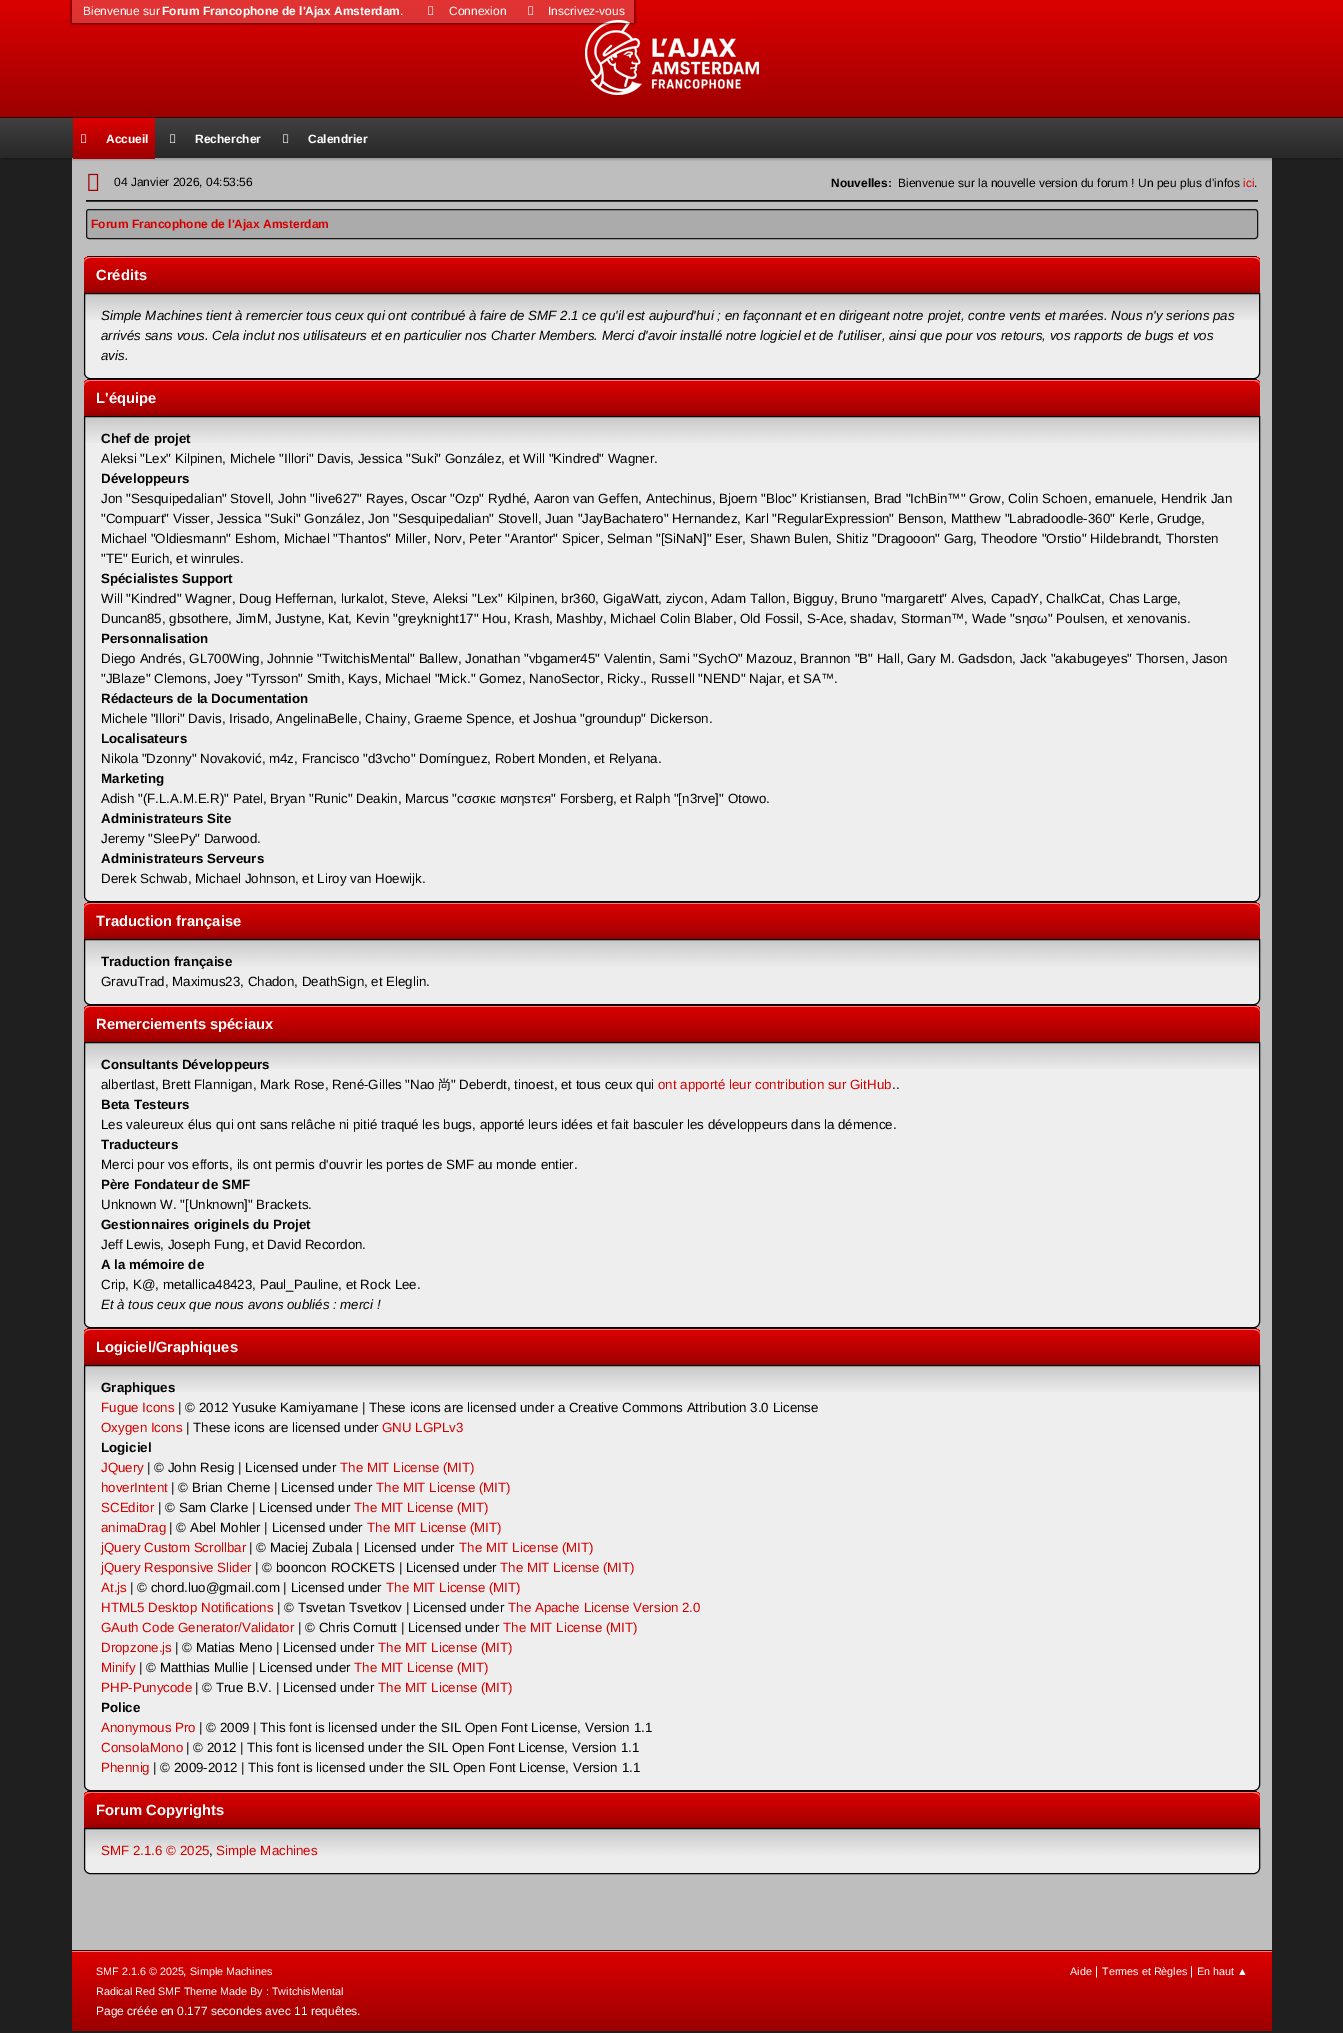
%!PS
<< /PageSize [1343 2033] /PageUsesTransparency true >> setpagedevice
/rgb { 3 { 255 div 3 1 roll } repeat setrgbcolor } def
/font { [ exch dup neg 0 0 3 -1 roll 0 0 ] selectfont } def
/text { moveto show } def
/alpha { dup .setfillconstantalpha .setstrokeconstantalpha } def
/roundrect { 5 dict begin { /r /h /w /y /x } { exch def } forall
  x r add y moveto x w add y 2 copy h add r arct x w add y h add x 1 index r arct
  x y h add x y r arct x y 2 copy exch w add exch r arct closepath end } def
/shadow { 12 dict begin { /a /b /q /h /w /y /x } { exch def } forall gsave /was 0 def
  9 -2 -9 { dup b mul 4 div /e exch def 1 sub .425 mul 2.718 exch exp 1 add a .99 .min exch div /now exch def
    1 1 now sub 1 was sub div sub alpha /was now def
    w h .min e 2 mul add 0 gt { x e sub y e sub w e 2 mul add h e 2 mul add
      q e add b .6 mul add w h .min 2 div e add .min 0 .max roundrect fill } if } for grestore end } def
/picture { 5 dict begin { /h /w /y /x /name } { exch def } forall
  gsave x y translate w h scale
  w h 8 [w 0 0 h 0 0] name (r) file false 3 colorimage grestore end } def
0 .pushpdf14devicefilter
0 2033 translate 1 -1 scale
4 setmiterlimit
31 31 31 rgb
0 0 1343 2033 rectfill
gsave 0 0 moveto 1343 0 rlineto 0 117 rlineto -1343 0 rlineto closepath clip newpath
<< /ShadingType 2 /ColorSpace /DeviceRGB /Coords [672 0 672 117] /Extend [true true] /Function << /FunctionType 2 /Domain [0 1] /C0 [0.863 0 0] /C1 [0.616 0 0] /N 1 >> >> shfill grestore
43 0 0 rgb
0 117 1343 1 rectfill
(img_01.rgb) 585 20 174 75 picture
190 190 190 rgb
72 158 1200 1792 rectfill
gsave
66 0 moveto 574 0 rlineto 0 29 rlineto -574 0 rlineto closepath 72 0 moveto 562 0 rlineto 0 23 rlineto -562 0 rlineto closepath eoclip newpath
0 0 0 rgb
72 0 562 23 0 1.5 1 shadow
grestore
0.2 alpha
255 255 255 rgb
72 0 562 23 rectfill
1 alpha
(img_02.rgb) 428 6 6 9 picture
(img_02.rgb) 528 6 6 9 picture
10 10 10 rgb
86 200 1172 1 rectfill
55 55 55 rgb
86 201 1172 1 rectfill
(img_03.rgb) 88 173 11 18 picture
168 182 207 rgb
1243 190 11 1 rectfill
171 171 171 rgb
86.5 209.5 1171 29 2.5 roundrect gsave fill grestore
21 21 21 rgb
stroke
gsave
90 256 moveto 1164 0 rlineto 3.5 0 6 2.5 6 6 rcurveto 0 32 rlineto -1176 0 rlineto 0 -32 rlineto 0 -3.5 2.5 -6 6 -6 rcurveto closepath clip newpath
gsave 84 257 moveto 1176 0 rlineto 0 36 rlineto -1176 0 rlineto closepath clip newpath
<< /ShadingType 2 /ColorSpace /DeviceRGB /Coords [672 257 672 294] /Extend [true true] /Function << /FunctionType 2 /Domain [0 1] /C0 [0.863 0 0] /C1 [0.616 0 0] /N 1 >> >> shfill grestore
grestore
255 119 119 rgb
90 258 moveto 1164 0 rlineto 3 0 6 2 6 5 rcurveto 0 -4 -2 -6 -6 -6 rcurveto -1164 0 rlineto -4 0 -6 2 -6 6 rcurveto 0 -3 3 -5 6 -5 rcurveto closepath fill
43 0 0 rgb
87 256 1170 1 rectfill
gsave
90 379 moveto 1164 0 rlineto 3.5 0 6 2.5 6 6 rcurveto 0 32 rlineto -1176 0 rlineto 0 -32 rlineto 0 -3.5 2.5 -6 6 -6 rcurveto closepath clip newpath
gsave 84 380 moveto 1176 0 rlineto 0 36 rlineto -1176 0 rlineto closepath clip newpath
<< /ShadingType 2 /ColorSpace /DeviceRGB /Coords [672 380 672 417] /Extend [true true] /Function << /FunctionType 2 /Domain [0 1] /C0 [0.863 0 0] /C1 [0.616 0 0] /N 1 >> >> shfill grestore
grestore
255 119 119 rgb
90 381 moveto 1164 0 rlineto 3 0 6 2 6 5 rcurveto 0 -4 -2 -6 -6 -6 rcurveto -1164 0 rlineto -4 0 -6 2 -6 6 rcurveto 0 -3 3 -5 6 -5 rcurveto closepath fill
43 0 0 rgb
87 379 1170 1 rectfill
0 0 0 rgb
84 291 1176 86 6 1 0.1 shadow
237 238 237 rgb
84 293 moveto 1176 0 rlineto 0 80 rlineto 0 3.5 -2.5 6 -6 6 rcurveto -1164 0 rlineto -3.5 0 -6 -2.5 -6 -6 rcurveto closepath fill
(img_04.rgb) 85 294 1174 26 picture
5 5 5 rgb
84.5 293.5 moveto 1175 0 rlineto 0 79.5 rlineto 0 3 -2.5 5.5 -5.5 5.5 rcurveto -1164 0 rlineto -3 0 -5.5 -2.5 -5.5 -5.5 rcurveto closepath stroke
gsave
90 902 moveto 1164 0 rlineto 3.5 0 6 2.5 6 6 rcurveto 0 32 rlineto -1176 0 rlineto 0 -32 rlineto 0 -3.5 2.5 -6 6 -6 rcurveto closepath clip newpath
gsave 84 903 moveto 1176 0 rlineto 0 36 rlineto -1176 0 rlineto closepath clip newpath
<< /ShadingType 2 /ColorSpace /DeviceRGB /Coords [672 903 672 940] /Extend [true true] /Function << /FunctionType 2 /Domain [0 1] /C0 [0.863 0 0] /C1 [0.616 0 0] /N 1 >> >> shfill grestore
grestore
255 119 119 rgb
90 904 moveto 1164 0 rlineto 3 0 6 2 6 5 rcurveto 0 -4 -2 -6 -6 -6 rcurveto -1164 0 rlineto -4 0 -6 2 -6 6 rcurveto 0 -3 3 -5 6 -5 rcurveto closepath fill
43 0 0 rgb
87 902 1170 1 rectfill
0 0 0 rgb
84 414 1176 486 6 1 0.1 shadow
237 238 237 rgb
84 416 moveto 1176 0 rlineto 0 480 rlineto 0 3.5 -2.5 6 -6 6 rcurveto -1164 0 rlineto -3.5 0 -6 -2.5 -6 -6 rcurveto closepath fill
(img_04.rgb) 85 417 1174 26 picture
5 5 5 rgb
84.5 416.5 moveto 1175 0 rlineto 0 479.5 rlineto 0 3 -2.5 5.5 -5.5 5.5 rcurveto -1164 0 rlineto -3 0 -5.5 -2.5 -5.5 -5.5 rcurveto closepath stroke
gsave
90 1005 moveto 1164 0 rlineto 3.5 0 6 2.5 6 6 rcurveto 0 32 rlineto -1176 0 rlineto 0 -32 rlineto 0 -3.5 2.5 -6 6 -6 rcurveto closepath clip newpath
gsave 84 1006 moveto 1176 0 rlineto 0 36 rlineto -1176 0 rlineto closepath clip newpath
<< /ShadingType 2 /ColorSpace /DeviceRGB /Coords [672 1006 672 1043] /Extend [true true] /Function << /FunctionType 2 /Domain [0 1] /C0 [0.863 0 0] /C1 [0.616 0 0] /N 1 >> >> shfill grestore
grestore
255 119 119 rgb
90 1007 moveto 1164 0 rlineto 3 0 6 2 6 5 rcurveto 0 -4 -2 -6 -6 -6 rcurveto -1164 0 rlineto -4 0 -6 2 -6 6 rcurveto 0 -3 3 -5 6 -5 rcurveto closepath fill
43 0 0 rgb
87 1005 1170 1 rectfill
0 0 0 rgb
84 937 1176 66 6 1 0.1 shadow
(img_05.rgb) 84 940 1176 64 picture
5 5 5 rgb
84.5 939.5 moveto 1175 0 rlineto 0 59.5 rlineto 0 3 -2.5 5.5 -5.5 5.5 rcurveto -1164 0 rlineto -3 0 -5.5 -2.5 -5.5 -5.5 rcurveto closepath stroke
gsave
90 1328 moveto 1164 0 rlineto 3.5 0 6 2.5 6 6 rcurveto 0 32 rlineto -1176 0 rlineto 0 -32 rlineto 0 -3.5 2.5 -6 6 -6 rcurveto closepath clip newpath
gsave 84 1329 moveto 1176 0 rlineto 0 36 rlineto -1176 0 rlineto closepath clip newpath
<< /ShadingType 2 /ColorSpace /DeviceRGB /Coords [672 1329 672 1366] /Extend [true true] /Function << /FunctionType 2 /Domain [0 1] /C0 [0.863 0 0] /C1 [0.616 0 0] /N 1 >> >> shfill grestore
grestore
255 119 119 rgb
90 1330 moveto 1164 0 rlineto 3 0 6 2 6 5 rcurveto 0 -4 -2 -6 -6 -6 rcurveto -1164 0 rlineto -4 0 -6 2 -6 6 rcurveto 0 -3 3 -5 6 -5 rcurveto closepath fill
43 0 0 rgb
87 1328 1170 1 rectfill
0 0 0 rgb
84 1040 1176 286 6 1 0.1 shadow
237 238 237 rgb
84 1042 moveto 1176 0 rlineto 0 280 rlineto 0 3.5 -2.5 6 -6 6 rcurveto -1164 0 rlineto -3.5 0 -6 -2.5 -6 -6 rcurveto closepath fill
(img_04.rgb) 85 1043 1174 26 picture
5 5 5 rgb
84.5 1042.5 moveto 1175 0 rlineto 0 279.5 rlineto 0 3 -2.5 5.5 -5.5 5.5 rcurveto -1164 0 rlineto -3 0 -5.5 -2.5 -5.5 -5.5 rcurveto closepath stroke
gsave
90 1791 moveto 1164 0 rlineto 3.5 0 6 2.5 6 6 rcurveto 0 32 rlineto -1176 0 rlineto 0 -32 rlineto 0 -3.5 2.5 -6 6 -6 rcurveto closepath clip newpath
gsave 84 1792 moveto 1176 0 rlineto 0 36 rlineto -1176 0 rlineto closepath clip newpath
<< /ShadingType 2 /ColorSpace /DeviceRGB /Coords [672 1792 672 1829] /Extend [true true] /Function << /FunctionType 2 /Domain [0 1] /C0 [0.863 0 0] /C1 [0.616 0 0] /N 1 >> >> shfill grestore
grestore
255 119 119 rgb
90 1793 moveto 1164 0 rlineto 3 0 6 2 6 5 rcurveto 0 -4 -2 -6 -6 -6 rcurveto -1164 0 rlineto -4 0 -6 2 -6 6 rcurveto 0 -3 3 -5 6 -5 rcurveto closepath fill
43 0 0 rgb
87 1791 1170 1 rectfill
0 0 0 rgb
84 1363 1176 426 6 1 0.1 shadow
237 238 237 rgb
84 1365 moveto 1176 0 rlineto 0 420 rlineto 0 3.5 -2.5 6 -6 6 rcurveto -1164 0 rlineto -3.5 0 -6 -2.5 -6 -6 rcurveto closepath fill
(img_04.rgb) 85 1366 1174 26 picture
5 5 5 rgb
84.5 1365.5 moveto 1175 0 rlineto 0 419.5 rlineto 0 3 -2.5 5.5 -5.5 5.5 rcurveto -1164 0 rlineto -3 0 -5.5 -2.5 -5.5 -5.5 rcurveto closepath stroke
0 0 0 rgb
84 1826 1176 46 6 1 0.1 shadow
(img_06.rgb) 84 1829 1176 45 picture
5 5 5 rgb
84.5 1828.5 moveto 1175 0 rlineto 0 39.5 rlineto 0 3 -2.5 5.5 -5.5 5.5 rcurveto -1164 0 rlineto -3 0 -5.5 -2.5 -5.5 -5.5 rcurveto closepath stroke
gsave 72 1952 moveto 1200 0 rlineto 0 79 rlineto -1200 0 rlineto closepath clip newpath
<< /ShadingType 2 /ColorSpace /DeviceRGB /Coords [672 1951 672 2031] /Extend [true true] /Function << /FunctionType 2 /Domain [0 1] /C0 [0.863 0 0] /C1 [0.616 0 0] /N 1 >> >> shfill grestore
255 119 119 rgb
72 1951 1200 1 rectfill
43 0 0 rgb
72 1950 1200 1 rectfill
0 0 0 rgb
2 124 1339 36 0 1 0.2 shadow
gsave 0 118 moveto 1343 0 rlineto 0 40 rlineto -1343 0 rlineto closepath clip newpath
<< /ShadingType 2 /ColorSpace /DeviceRGB /Coords [672 118 672 158] /Extend [true true] /Function << /FunctionType 2 /Domain [0 1] /C0 [0.255 0.255 0.255] /C1 [0.157 0.157 0.157] /N 1 >> >> shfill grestore
gsave 73 118 moveto 82 0 rlineto 0 41 rlineto -82 0 rlineto closepath clip newpath
<< /ShadingType 2 /ColorSpace /DeviceRGB /Coords [114 118 114 159] /Extend [true true] /Function << /FunctionType 2 /Domain [0 1] /C0 [0.863 0 0] /C1 [0.616 0 0] /N 1 >> >> shfill grestore
(img_07.rgb) 81 134 6 9 picture
(img_08.rgb) 170 134 6 9 picture
(img_08.rgb) 283 134 6 9 picture
/LiberationSans-Regular 12 font
255 255 255 rgb
(Bienvenue sur) 83 15 text
/LiberationSans-Bold 12 font
(Forum Francophone de l'Ajax Amsterdam) 162 15 text
/LiberationSans-Regular 12 font
(.) 400 15 text
(Connexion) 449 15 text
(Inscrivez-vous) 548 15 text
0 0 0 rgb
(04 Janvier 2026, 04:53:56) 114 186 text
/LiberationSans-Bold 12 font
(Nouvelles:) 831 187 text
/LiberationSans-Regular 12 font
(Bienvenue sur la nouvelle version du forum ! Un peu plus d'infos) 898 187 text
212 0 0 rgb
(ici) 1243 187 text
0 0 0 rgb
(.) 1254 187 text
/LiberationSans-Bold 12 font
212 0 0 rgb
(Forum Francophone de l'Ajax Amsterdam) 91 228 text
/LiberationSans-Bold 14.75 font
255 255 255 rgb
(Crédits) 96 280 text
/LiberationSans-Italic 13.33 font
0 0 0 rgb
(Simple Machines tient à remercier tous ceux qui ont contribué à faire de SMF 2.1 ce qu'il est aujourd'hui ; en façonnant et en dirigeant notre projet, contre vents et marées. Nous n'y serions pas) 101 320 text
(arrivés sans vous. Cela inclut nos utilisateurs et en particulier nos Charter Members. Merci d'avoir installé notre logiciel et de l'utiliser, ainsi que pour vos retours, vos rapports de bugs et vos) 101 340 text
(avis.) 101 360 text
/LiberationSans-Bold 14.75 font
255 255 255 rgb
(L'équipe) 96 403 text
/LiberationSans-Bold 13.33 font
0 0 0 rgb
(Chef de projet) 101 443 text
/LiberationSans-Regular 13.33 font
(Aleksi "Lex" Kilpinen, Michele "Illori" Davis, Jessica "Suki" González, et Will "Kindred" Wagner.) 101 463 text
/LiberationSans-Bold 13.33 font
(Développeurs) 101 483 text
/LiberationSans-Regular 13.33 font
(Jon "Sesquipedalian" Stovell, John "live627" Rayes, Oscar "Ozp" Rydhé, Aaron van Geffen, Antechinus, Bjoern "Bloc" Kristiansen, Brad "IchBin™" Grow, Colin Schoen, emanuele, Hendrik Jan) 101 503 text
("Compuart" Visser, Jessica "Suki" González, Jon "Sesquipedalian" Stovell, Juan "JayBachatero" Hernandez, Karl "RegularExpression" Benson, Matthew "Labradoodle-360" Kerle, Grudge,) 101 523 text
(Michael "Oldiesmann" Eshom, Michael "Thantos" Miller, Norv, Peter "Arantor" Spicer, Selman "[SiNaN]" Eser, Shawn Bulen, Shitiz "Dragooon" Garg, Theodore "Orstio" Hildebrandt, Thorsten) 101 543 text
("TE" Eurich, et winrules.) 101 563 text
/LiberationSans-Bold 13.33 font
(Spécialistes Support) 101 583 text
/LiberationSans-Regular 13.33 font
(Will "Kindred" Wagner, Doug Heffernan, lurkalot, Steve, Aleksi "Lex" Kilpinen, br360, GigaWatt, ziycon, Adam Tallon, Bigguy, Bruno "margarett" Alves, CapadY, ChalkCat, Chas Large,) 101 603 text
(Duncan85, gbsothere, JimM, Justyne, Kat, Kevin "greyknight17" Hou, Krash, Mashby, Michael Colin Blaber, Old Fossil, S-Ace, shadav, Storman™, Wade "sησω" Poulsen, et xenovanis.) 101 623 text
/LiberationSans-Bold 13.33 font
(Personnalisation) 101 643 text
/LiberationSans-Regular 13.33 font
(Diego Andrés, GL700Wing, Johnnie "TwitchisMental" Ballew, Jonathan "vbgamer45" Valentin, Sami "SychO" Mazouz, Brannon "B" Hall, Gary M. Gadsdon, Jack "akabugeyes" Thorsen, Jason) 101 663 text
("JBlaze" Clemons, Joey "Tyrsson" Smith, Kays, Michael "Mick." Gomez, NanoSector, Ricky., Russell "NEND" Najar, et SA™.) 101 683 text
/LiberationSans-Bold 13.33 font
(Rédacteurs de la Documentation) 101 703 text
/LiberationSans-Regular 13.33 font
(Michele "Illori" Davis, Irisado, AngelinaBelle, Chainy, Graeme Spence, et Joshua "groundup" Dickerson.) 101 723 text
/LiberationSans-Bold 13.33 font
(Localisateurs) 101 743 text
/LiberationSans-Regular 13.33 font
(Nikola "Dzonny" Novaković, m4z, Francisco "d3vcho" Domínguez, Robert Monden, et Relyana.) 101 763 text
/LiberationSans-Bold 13.33 font
(Marketing) 101 783 text
/LiberationSans-Regular 13.33 font
(Adish "\(F.L.A.M.E.R\)" Patel, Bryan "Runic" Deakin, Marcus "cσσкιє мσηѕтєя" Forsberg, et Ralph "[n3rve]" Otowo.) 101 803 text
/LiberationSans-Bold 13.33 font
(Administrateurs Site) 101 823 text
/LiberationSans-Regular 13.33 font
(Jeremy "SleePy" Darwood.) 101 843 text
/LiberationSans-Bold 13.33 font
(Administrateurs Serveurs) 101 863 text
/LiberationSans-Regular 13.33 font
(Derek Schwab, Michael Johnson, et Liroy van Hoewijk.) 101 883 text
/LiberationSans-Bold 14.75 font
255 255 255 rgb
(Traduction française) 96 926 text
gsave
101 952 1142 40 rectclip
/LiberationSans-Bold 13.33 font
0 0 0 rgb
(Traduction française) 101 966 text
grestore
/LiberationSans-Regular 13.33 font
0 0 0 rgb
(GravuTrad, Maximus23, Chadon, DeathSign, et Eleglin.) 101 986 text
/LiberationSans-Bold 14.75 font
255 255 255 rgb
(Remerciements spéciaux) 96 1029 text
/LiberationSans-Bold 13.33 font
0 0 0 rgb
(Consultants Développeurs) 101 1069 text
/LiberationSans-Regular 13.33 font
(albertlast, Brett Flannigan, Mark Rose, René-Gilles "Nao) 101 1089 text
/WenQuanYiZenHei-Medium 13.33 font
(尚) 438 1089 text
/LiberationSans-Regular 13.33 font
(" Deberdt, tinoest, et tous ceux qui) 451 1089 text
212 0 0 rgb
(ont apporté leur contribution sur GitHub) 658 1089 text
0 0 0 rgb
(..) 892 1089 text
/LiberationSans-Bold 13.33 font
(Beta Testeurs) 101 1109 text
/LiberationSans-Regular 13.33 font
(Les valeureux élus qui ont sans relâche ni pitié traqué les bugs, apporté leurs idées et fait basculer les développeurs dans la démence.) 101 1129 text
gsave
101 1055 1142 240 rectclip
/LiberationSans-Bold 13.33 font
(Traducteurs) 101 1149 text
grestore
(Merci pour vos efforts, ils ont permis d'ouvrir les portes de SMF au monde entier.) 101 1169 text
/LiberationSans-Bold 13.33 font
(Père Fondateur de SMF) 101 1189 text
/LiberationSans-Regular 13.33 font
(Unknown W. "[Unknown]" Brackets.) 101 1209 text
/LiberationSans-Bold 13.33 font
(Gestionnaires originels du Projet) 101 1229 text
/LiberationSans-Regular 13.33 font
(Jeff Lewis, Joseph Fung, et David Recordon.) 101 1249 text
/LiberationSans-Bold 13.33 font
(A la mémoire de) 101 1269 text
/LiberationSans-Regular 13.33 font
(Crip, K@, metallica48423, Paul_Pauline, et Rock Lee.) 101 1289 text
/LiberationSans-Italic 13.33 font
(Et à tous ceux que nous avons oubliés : merci !) 101 1309 text
/LiberationSans-Bold 14.75 font
255 255 255 rgb
(Logiciel/Graphiques) 96 1352 text
/LiberationSans-Bold 13.33 font
0 0 0 rgb
(Graphiques) 101 1392 text
/LiberationSans-Regular 13.33 font
212 0 0 rgb
(Fugue Icons) 101 1412 text
0 0 0 rgb
(| © 2012 Yusuke Kamiyamane | These icons are licensed under a Creative Commons Attribution 3.0 License) 178 1412 text
212 0 0 rgb
(Oxygen Icons) 101 1432 text
0 0 0 rgb
(| These icons are licensed under) 186 1432 text
212 0 0 rgb
(GNU LGPLv3) 382 1432 text
/LiberationSans-Bold 13.33 font
0 0 0 rgb
(Logiciel) 101 1452 text
/LiberationSans-Regular 13.33 font
212 0 0 rgb
(JQuery) 101 1472 text
0 0 0 rgb
(| © John Resig | Licensed under) 147 1472 text
212 0 0 rgb
(The MIT License \(MIT\)) 340 1472 text
(hoverIntent) 101 1492 text
0 0 0 rgb
(| © Brian Cherne | Licensed under) 171 1492 text
212 0 0 rgb
(The MIT License \(MIT\)) 376 1492 text
(SCEditor) 101 1512 text
0 0 0 rgb
(| © Sam Clarke | Licensed under) 158 1512 text
212 0 0 rgb
(The MIT License \(MIT\)) 354 1512 text
(animaDrag) 101 1532 text
0 0 0 rgb
(| © Abel Mohler | Licensed under) 169 1532 text
212 0 0 rgb
(The MIT License \(MIT\)) 367 1532 text
(jQuery Custom Scrollbar) 101 1552 text
0 0 0 rgb
(| © Maciej Zubala | Licensed under) 249 1552 text
212 0 0 rgb
(The MIT License \(MIT\)) 459 1552 text
(jQuery Responsive Slider) 101 1572 text
0 0 0 rgb
(| © booncon ROCKETS | Licensed under) 255 1572 text
212 0 0 rgb
(The MIT License \(MIT\)) 500 1572 text
(At.js) 101 1592 text
0 0 0 rgb
(| © chord.luo@gmail.com | Licensed under) 130 1592 text
212 0 0 rgb
(The MIT License \(MIT\)) 386 1592 text
(HTML5 Desktop Notifications) 101 1612 text
0 0 0 rgb
(| © Tsvetan Tsvetkov | Licensed under) 277 1612 text
212 0 0 rgb
(The Apache License Version 2.0) 508 1612 text
(GAuth Code Generator/Validator) 101 1632 text
0 0 0 rgb
(| © Chris Cornutt | Licensed under) 298 1632 text
212 0 0 rgb
(The MIT License \(MIT\)) 503 1632 text
(Dropzone.js) 101 1652 text
0 0 0 rgb
(| © Matias Meno | Licensed under) 175 1652 text
212 0 0 rgb
(The MIT License \(MIT\)) 378 1652 text
(Minify) 101 1672 text
0 0 0 rgb
(| © Matthias Mullie | Licensed under) 139 1672 text
212 0 0 rgb
(The MIT License \(MIT\)) 354 1672 text
(PHP-Punycode) 101 1692 text
0 0 0 rgb
(| © True B.V. | Licensed under) 195 1692 text
212 0 0 rgb
(The MIT License \(MIT\)) 378 1692 text
/LiberationSans-Bold 13.33 font
0 0 0 rgb
(Police) 101 1712 text
/LiberationSans-Regular 13.33 font
212 0 0 rgb
(Anonymous Pro) 101 1732 text
0 0 0 rgb
(| © 2009 | This font is licensed under the SIL Open Font License, Version 1.1) 199 1732 text
212 0 0 rgb
(ConsolaMono) 101 1752 text
0 0 0 rgb
(| © 2012 | This font is licensed under the SIL Open Font License, Version 1.1) 186 1752 text
212 0 0 rgb
(Phennig) 101 1772 text
0 0 0 rgb
(| © 2009-2012 | This font is licensed under the SIL Open Font License, Version 1.1) 153 1772 text
/LiberationSans-Bold 14.75 font
255 255 255 rgb
(Forum Copyrights) 96 1815 text
/LiberationSans-Regular 13.33 font
212 0 0 rgb
(SMF 2.1.6 © 2025) 101 1855 text
0 0 0 rgb
(,) 209 1855 text
212 0 0 rgb
(Simple Machines) 216 1855 text
/LiberationSans-Regular 10.8 font
255 255 255 rgb
(SMF 2.1.6 © 2025) 96 1975 text
/LiberationSans-Regular 12 font
(,) 183 1975 text
/LiberationSans-Regular 10.8 font
(Simple Machines) 190 1975 text
(Aide) 1070 1975 text
/LiberationSans-Regular 12 font
(|) 1095 1975 text
/LiberationSans-Regular 10.8 font
(Termes et Règles) 1102 1975 text
/LiberationSans-Regular 12 font
(|) 1190 1975 text
/LiberationSans-Regular 10.8 font
(En haut ▲) 1197 1975 text
(Radical Red SMF Theme Made By : TwitchisMental) 96 1995 text
/LiberationSans-Regular 12 font
(Page créée en 0.177 secondes avec 11 requêtes.) 96 2015 text
/LiberationSans-Bold 12 font
(Accueil) 106 143 text
(Rechercher) 195 143 text
(Calendrier) 308 143 text
.poppdf14devicefilter showpage
